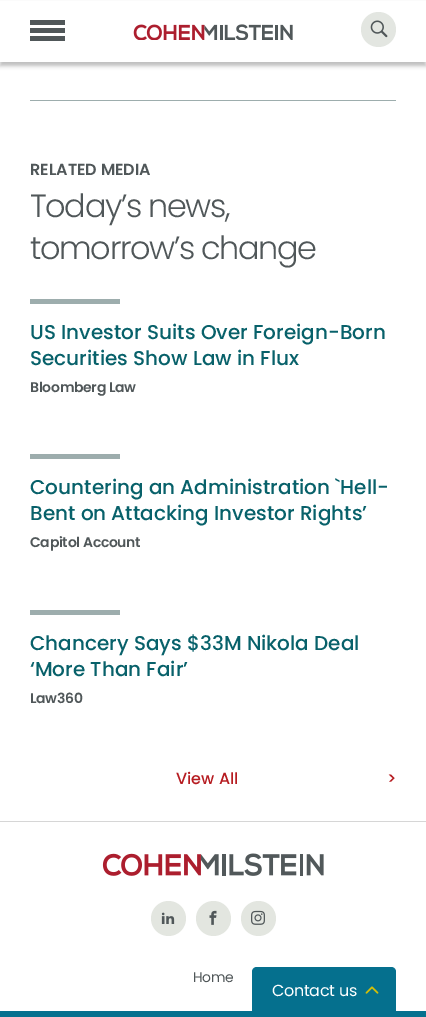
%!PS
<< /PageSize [426 1017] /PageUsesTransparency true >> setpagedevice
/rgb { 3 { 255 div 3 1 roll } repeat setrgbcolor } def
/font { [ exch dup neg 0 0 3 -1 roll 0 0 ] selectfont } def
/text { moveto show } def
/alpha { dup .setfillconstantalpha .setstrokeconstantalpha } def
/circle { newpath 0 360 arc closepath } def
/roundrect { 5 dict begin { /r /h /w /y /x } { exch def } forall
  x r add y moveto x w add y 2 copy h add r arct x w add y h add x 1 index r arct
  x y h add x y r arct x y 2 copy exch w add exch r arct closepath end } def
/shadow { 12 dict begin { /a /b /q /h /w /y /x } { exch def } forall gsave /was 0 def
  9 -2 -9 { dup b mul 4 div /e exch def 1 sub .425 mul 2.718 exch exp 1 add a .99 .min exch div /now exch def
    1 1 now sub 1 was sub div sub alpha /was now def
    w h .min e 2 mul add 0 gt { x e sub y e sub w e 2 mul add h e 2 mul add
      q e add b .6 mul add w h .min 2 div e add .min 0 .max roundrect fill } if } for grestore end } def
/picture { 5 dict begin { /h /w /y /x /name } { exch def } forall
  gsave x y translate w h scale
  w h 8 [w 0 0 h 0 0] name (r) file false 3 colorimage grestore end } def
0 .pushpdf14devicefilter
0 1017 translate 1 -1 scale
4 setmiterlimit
255 255 255 rgb
0 0 426 1017 rectfill
0 0 0 rgb
0 4 426 62 0 2 0.25 shadow
255 255 255 rgb
0 1 426 61 rectfill
80 87 89 rgb
30 20 35 5 rectfill
30 28 35 5 rectfill
30 36 35 5 rectfill
(img_01.rgb) 133 24 160 16 picture
227 230 225 rgb
378.5 29.5 17.5 circle fill
(img_02.rgb) 370 20 18 18 picture
157 173 173 rgb
30 100 366 1 rectfill
30 299 90 5 rectfill
30 454 90 5 rectfill
30 610 90 5 rectfill
214 214 214 rgb
0 821 426 1 rectfill
(img_03.rgb) 102 853 222 23 picture
227 230 224 rgb
168.5 918.5 17.5 circle fill
(img_04.rgb) 161 912 14 12 picture
213.5 918.5 17.5 circle fill
(img_05.rgb) 209 910 8 15 picture
258.5 918.5 17.5 circle fill
(img_06.rgb) 251 910 14 15 picture
5 112 142 rgb
257 967 moveto 134 0 rlineto 3 0 5 2 5 5 rcurveto 0 39 rlineto -144 0 rlineto 0 -39 rlineto 0 -3 2 -5 5 -5 rcurveto closepath fill
(img_07.rgb) 365 986 14 8 picture
0 1011 426 6 rectfill
/Poppins-SemiBold 16 font
80 87 89 rgb
(RELATED MEDIA) 30 175 text
/Poppins-Light 32 font
30 217 moveto -1.4 0 (Today’s news,) ashow
30 259 moveto -1.4 0 (tomorrow’s change) ashow
/Poppins-Medium 20 font
8 97 106 rgb
(US Investor Suits Over Foreign-Born) 30 339 text
(Securities Show Law in Flux) 30 365 text
/Poppins-SemiBold 14 font
80 87 89 rgb
30 392 moveto -0.3 0 (Bloomberg Law) ashow
/Poppins-Medium 20 font
8 97 106 rgb
(Countering an Administration `Hell-) 30 494 text
(Bent on Attacking Investor Rights’) 30 520 text
/Poppins-SemiBold 14 font
80 87 89 rgb
30 547 moveto -0.3 0 (Capitol Account) ashow
/Poppins-Medium 20 font
8 97 106 rgb
(Chancery Says $33M Nikola Deal) 30 650 text
(‘More Than Fair’) 30 676 text
/Poppins-SemiBold 14 font
80 87 89 rgb
30 703 moveto -0.3 0 (Law360) ashow
/Poppins-Medium 16 font
182 28 33 rgb
(View All) 176 784 text
(>) 387 784 text
/Poppins-Regular 14 font
80 87 89 rgb
193 982 moveto -0.3 0 (Home) ashow
/Poppins-Regular 16 font
255 255 255 rgb
272 996 moveto -0.3 0 (Contact us) ashow
.poppdf14devicefilter showpage
